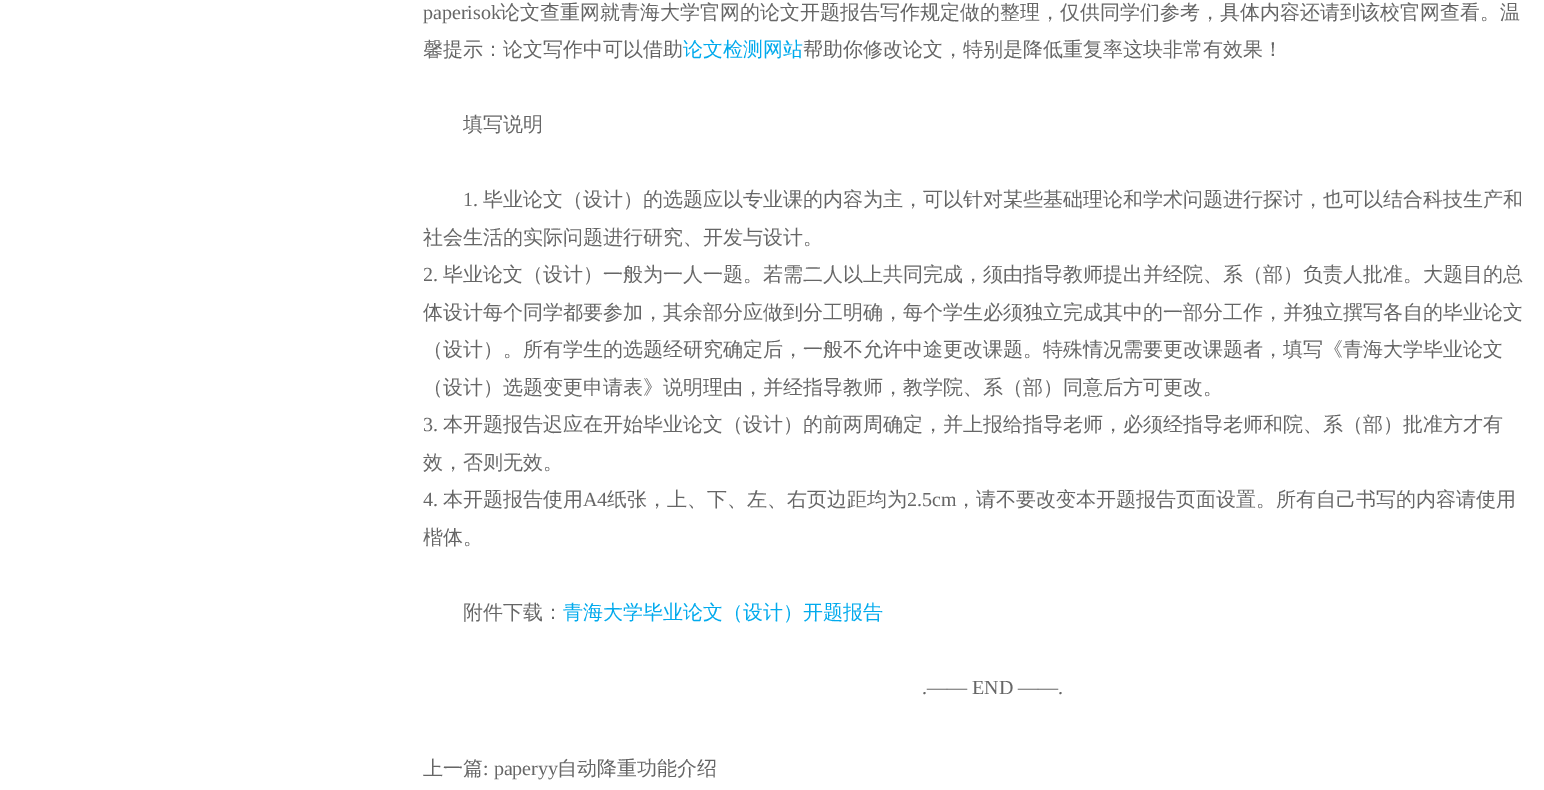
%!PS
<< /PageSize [1544 790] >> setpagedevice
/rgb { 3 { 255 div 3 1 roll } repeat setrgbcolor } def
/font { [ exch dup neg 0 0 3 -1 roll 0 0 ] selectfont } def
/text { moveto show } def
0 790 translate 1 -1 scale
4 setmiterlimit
255 255 255 rgb
0 0 1544 790 rectfill
/LiberationSerif-Regular 20 font
102 102 102 rgb
(paperisok) 423 19 text
/WenQuanYiZenHei-Medium 20 font
(论文查重网就青海大学官网的论文开题报告写作规定做的整理，仅供同学们参考，具体内容还请到该校官网查看。温) 500 19 text
(馨提示：论文写作中可以借助) 423 56 text
1 170 237 rgb
(论文检测网站) 683 56 text
102 102 102 rgb
(帮助你修改论文，特别是降低重复率这块非常有效果！) 803 56 text
(填写说明) 463 131 text
/LiberationSerif-Regular 20 font
(1.) 463 206 text
/WenQuanYiZenHei-Medium 20 font
(毕业论文（设计）的选题应以专业课的内容为主，可以针对某些基础理论和学术问题进行探讨，也可以结合科技生产和) 483 206 text
(社会生活的实际问题进行研究、开发与设计。) 423 244 text
/LiberationSerif-Regular 20 font
(2.) 423 281 text
/WenQuanYiZenHei-Medium 20 font
(毕业论文（设计）一般为一人一题。若需二人以上共同完成，须由指导教师提出并经院、系（部）负责人批准。大题目的总) 443 281 text
(体设计每个同学都要参加，其余部分应做到分工明确，每个学生必须独立完成其中的一部分工作，并独立撰写各自的毕业论文) 423 319 text
(（设计）。所有学生的选题经研究确定后，一般不允许中途更改课题。特殊情况需要更改课题者，填写《青海大学毕业论文) 423 356 text
(（设计）选题变更申请表》说明理由，并经指导教师，教学院、系（部）同意后方可更改。) 423 394 text
/LiberationSerif-Regular 20 font
(3.) 423 431 text
/WenQuanYiZenHei-Medium 20 font
(本开题报告迟应在开始毕业论文（设计）的前两周确定，并上报给指导老师，必须经指导老师和院、系（部）批准方才有) 443 431 text
(效，否则无效。) 423 469 text
/LiberationSerif-Regular 20 font
(4.) 423 506 text
/WenQuanYiZenHei-Medium 20 font
(本开题报告使用) 443 506 text
/LiberationSerif-Regular 20 font
(A4) 583 506 text
/WenQuanYiZenHei-Medium 20 font
(纸张，上、下、左、右页边距均为) 607 506 text
/LiberationSerif-Regular 20 font
(2.5cm) 907 506 text
/WenQuanYiZenHei-Medium 20 font
(，请不要改变本开题报告页面设置。所有自己书写的内容请使用) 956 506 text
(楷体。) 423 544 text
(附件下载：) 463 619 text
1 170 237 rgb
(青海大学毕业论文（设计）开题报告) 563 619 text
/LiberationSerif-Regular 20 font
102 102 102 rgb
(.—— END ——.) 922 694 text
/WenQuanYiZenHei-Medium 20 font
(上一篇) 423 775 text
/LiberationSerif-Regular 20 font
(: paperyy) 483 775 text
/WenQuanYiZenHei-Medium 20 font
(自动降重功能介绍) 557 775 text
showpage
